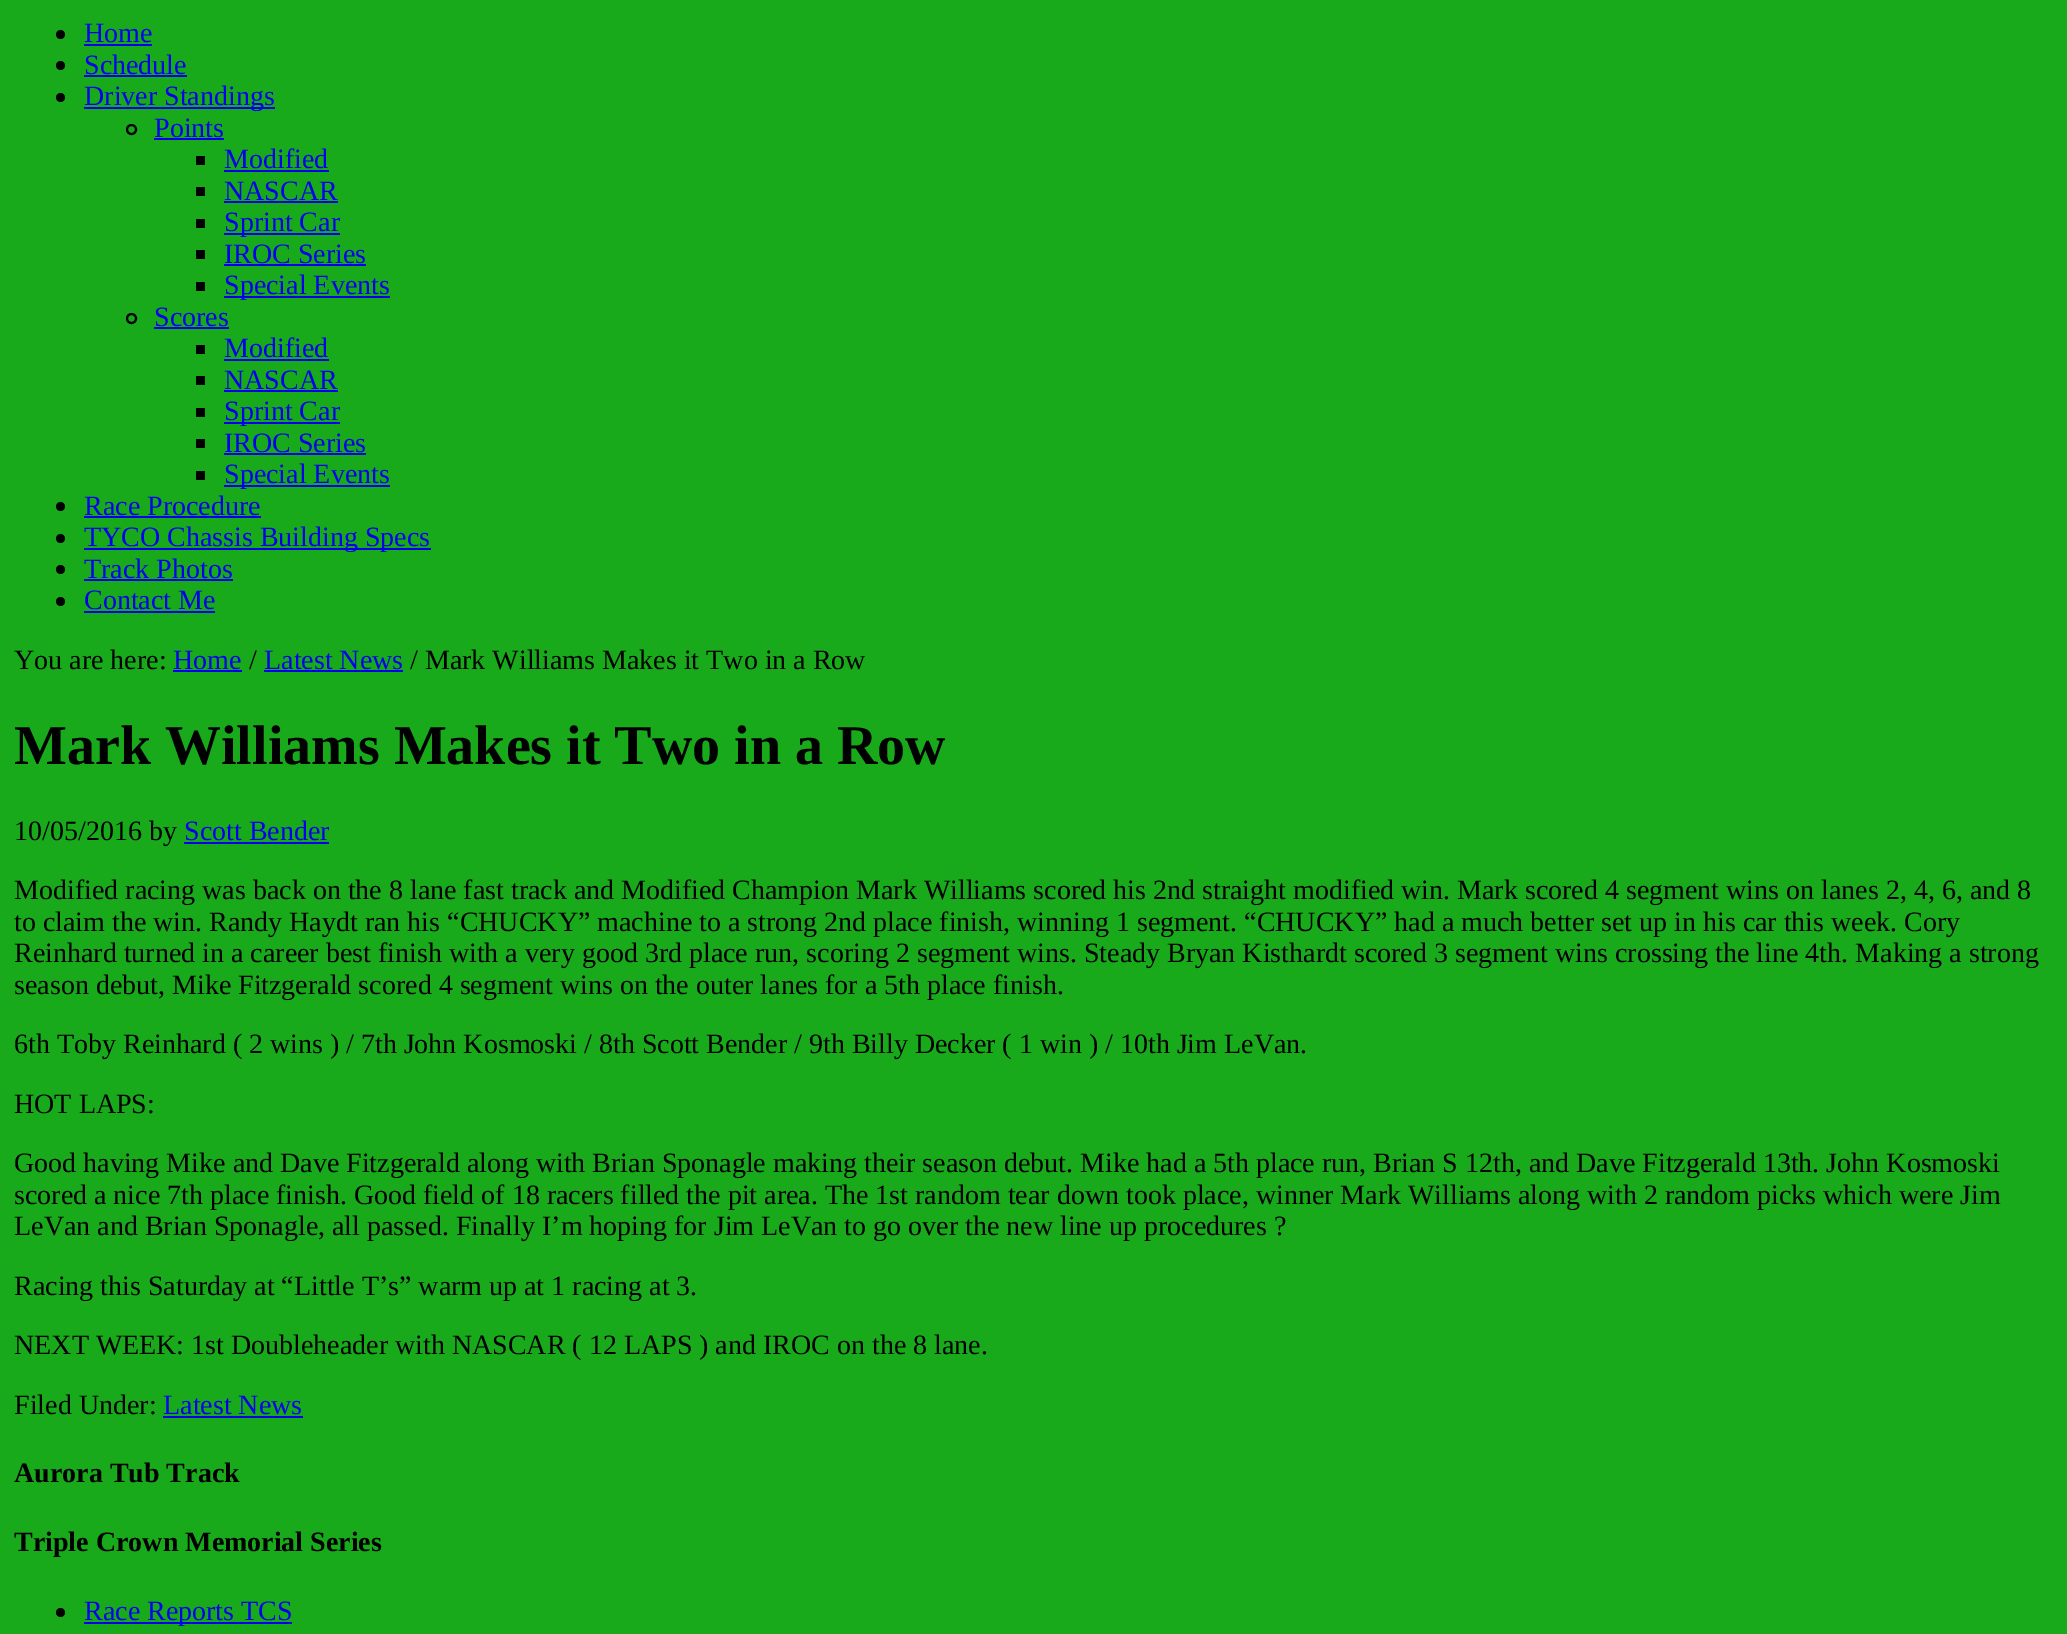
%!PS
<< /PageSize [2067 1634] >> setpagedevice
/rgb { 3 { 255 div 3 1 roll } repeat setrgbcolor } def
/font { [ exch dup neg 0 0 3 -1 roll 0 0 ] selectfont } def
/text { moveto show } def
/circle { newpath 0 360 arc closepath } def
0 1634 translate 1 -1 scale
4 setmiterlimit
25 170 28 rgb
0 0 2067 1634 rectfill
0 0 0 rgb
60.5 34.5 4.5 circle fill
0 0 238 rgb
84 44 68 2 rectfill
0 0 0 rgb
60.5 65.5 4.5 circle fill
0 0 238 rgb
84 75 103 2 rectfill
0 0 0 rgb
60.5 97.5 4.5 circle fill
0 0 238 rgb
84 107 191 2 rectfill
0 0 0 rgb
2 setlinewidth
131.5 129.5 4.5 circle stroke
0 0 238 rgb
154 138 70 2 rectfill
0 0 0 rgb
196 156 9 9 rectfill
0 0 238 rgb
224 170 105 2 rectfill
0 0 0 rgb
196 187 9 9 rectfill
0 0 238 rgb
224 201 114 2 rectfill
0 0 0 rgb
196 219 9 9 rectfill
0 0 238 rgb
224 233 116 2 rectfill
0 0 0 rgb
196 250 9 9 rectfill
0 0 238 rgb
224 264 142 2 rectfill
0 0 0 rgb
196 282 9 9 rectfill
0 0 238 rgb
224 296 166 2 rectfill
0 0 0 rgb
131.5 318.5 4.5 circle stroke
0 0 238 rgb
154 327 75 2 rectfill
0 0 0 rgb
196 345 9 9 rectfill
0 0 238 rgb
224 359 105 2 rectfill
0 0 0 rgb
196 376 9 9 rectfill
0 0 238 rgb
224 390 114 2 rectfill
0 0 0 rgb
196 408 9 9 rectfill
0 0 238 rgb
224 422 116 2 rectfill
0 0 0 rgb
196 439 9 9 rectfill
0 0 238 rgb
224 453 142 2 rectfill
0 0 0 rgb
196 471 9 9 rectfill
0 0 238 rgb
224 485 166 2 rectfill
0 0 0 rgb
60.5 506.5 4.5 circle fill
0 0 238 rgb
84 516 177 2 rectfill
0 0 0 rgb
60.5 538.5 4.5 circle fill
0 0 238 rgb
84 548 347 2 rectfill
0 0 0 rgb
60.5 569.5 4.5 circle fill
0 0 238 rgb
84 579 149 2 rectfill
0 0 0 rgb
60.5 601.5 4.5 circle fill
0 0 238 rgb
84 611 131 2 rectfill
173 670 69 2 rectfill
264 670 139 2 rectfill
184 842 145 2 rectfill
163 1416 140 2 rectfill
0 0 0 rgb
60.5 1612.5 4.5 circle fill
0 0 238 rgb
84 1622 208 2 rectfill
/LiberationSerif-Regular 28 font
(Home) 84 42 text
(Schedule) 84 74 text
(Driver Standings) 84 105 text
(Points) 154 137 text
(Modified) 224 168 text
(NASCAR) 224 200 text
(Sprint Car) 224 231 text
(IROC Series) 224 263 text
(Special Events) 224 294 text
(Scores) 154 326 text
(Modified) 224 357 text
(NASCAR) 224 389 text
(Sprint Car) 224 420 text
(IROC Series) 224 452 text
(Special Events) 224 483 text
(Race Procedure) 84 515 text
(TYCO Chassis Building Specs) 84 546 text
(Track Photos) 84 578 text
(Contact Me) 84 609 text
0 0 0 rgb
(You are here:) 14 669 text
0 0 238 rgb
(Home) 173 669 text
0 0 0 rgb
(/) 249 669 text
0 0 238 rgb
(Latest News) 264 669 text
0 0 0 rgb
(/ Mark Williams Makes it Two in a Row) 410 669 text
/LiberationSerif-Bold 56 font
(Mark Williams Makes it Two in a Row) 14 764 text
/LiberationSerif-Regular 28 font
(10/05/2016 by) 14 840 text
0 0 238 rgb
(Scott Bender) 184 840 text
0 0 0 rgb
(Modified racing was back on the 8 lane fast track and Modified Champion Mark Williams scored his 2nd straight modified win. Mark scored 4 segment wins on lanes 2, 4, 6, and 8) 14 899 text
(to claim the win. Randy Haydt ran his “CHUCKY” machine to a strong 2nd place finish, winning 1 segment. “CHUCKY” had a much better set up in his car this week. Cory) 14 931 text
(Reinhard turned in a career best finish with a very good 3rd place run, scoring 2 segment wins. Steady Bryan Kisthardt scored 3 segment wins crossing the line 4th. Making a strong) 14 962 text
(season debut, Mike Fitzgerald scored 4 segment wins on the outer lanes for a 5th place finish.) 14 994 text
(6th Toby Reinhard \( 2 wins \) / 7th John Kosmoski / 8th Scott Bender / 9th Billy Decker \( 1 win \) / 10th Jim LeVan.) 14 1053 text
(HOT LAPS:) 14 1113 text
(Good having Mike and Dave Fitzgerald along with Brian Sponagle making their season debut. Mike had a 5th place run, Brian S 12th, and Dave Fitzgerald 13th. John Kosmoski) 14 1172 text
(scored a nice 7th place finish. Good field of 18 racers filled the pit area. The 1st random tear down took place, winner Mark Williams along with 2 random picks which were Jim) 14 1204 text
(LeVan and Brian Sponagle, all passed. Finally I’m hoping for Jim LeVan to go over the new line up procedures ?) 14 1235 text
(Racing this Saturday at “Little T’s” warm up at 1 racing at 3.) 14 1295 text
(NEXT WEEK: 1st Doubleheader with NASCAR \( 12 LAPS \) and IROC on the 8 lane.) 14 1354 text
(Filed Under:) 14 1414 text
0 0 238 rgb
(Latest News) 163 1414 text
/LiberationSerif-Bold 28 font
0 0 0 rgb
(Aurora Tub Track) 14 1482 text
(Triple Crown Memorial Series) 14 1551 text
/LiberationSerif-Regular 28 font
0 0 238 rgb
(Race Reports TCS) 84 1620 text
showpage
